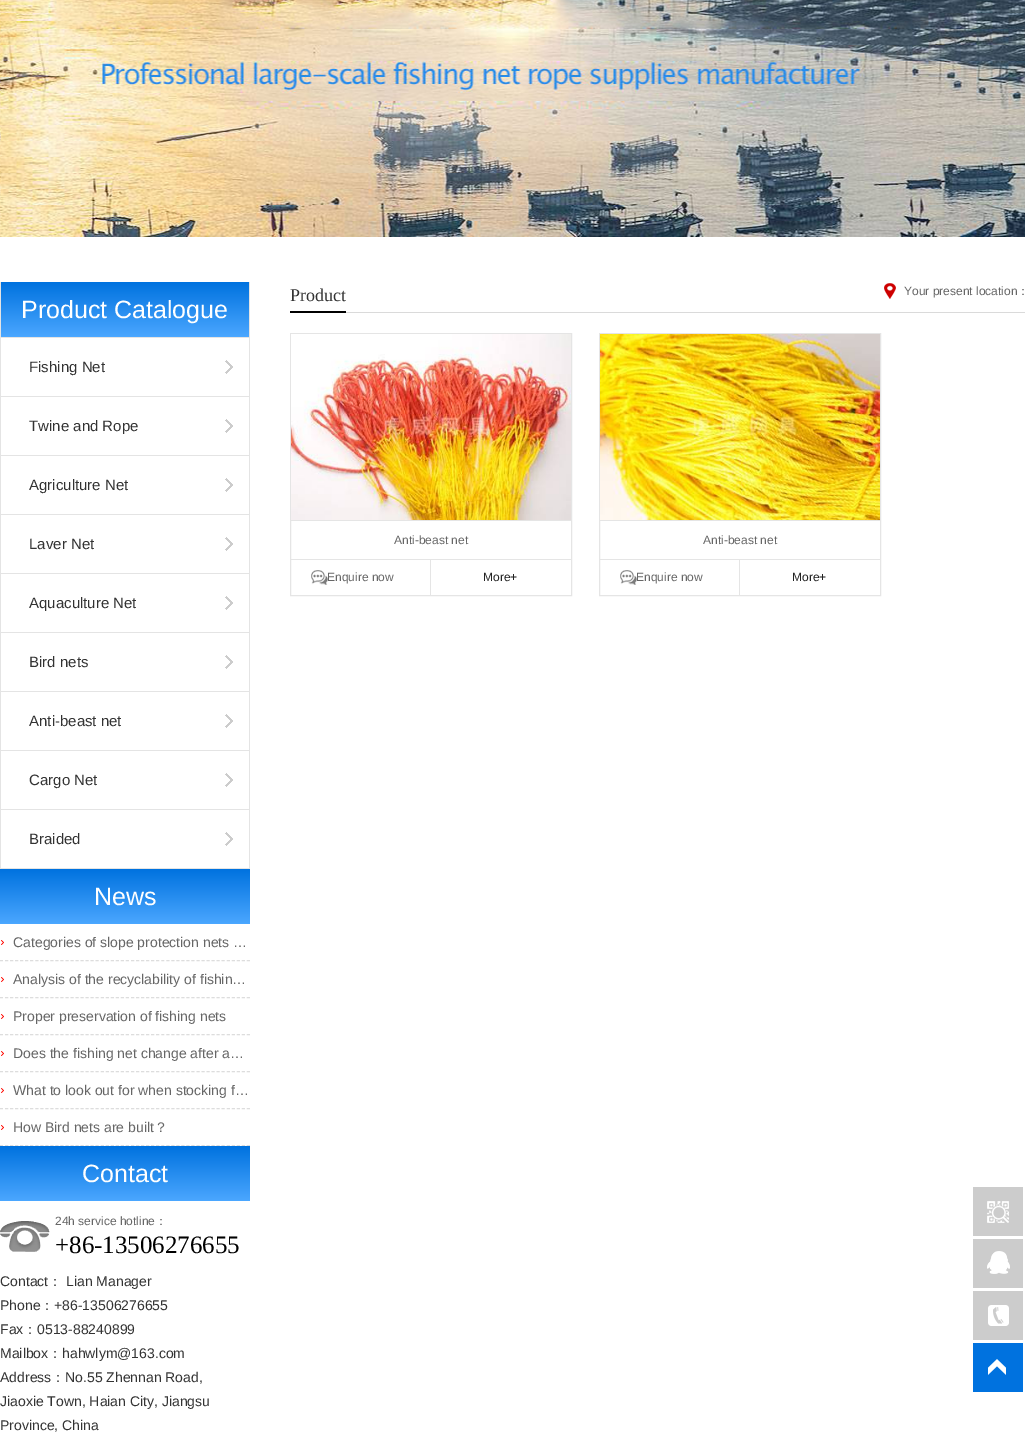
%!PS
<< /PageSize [1025 1438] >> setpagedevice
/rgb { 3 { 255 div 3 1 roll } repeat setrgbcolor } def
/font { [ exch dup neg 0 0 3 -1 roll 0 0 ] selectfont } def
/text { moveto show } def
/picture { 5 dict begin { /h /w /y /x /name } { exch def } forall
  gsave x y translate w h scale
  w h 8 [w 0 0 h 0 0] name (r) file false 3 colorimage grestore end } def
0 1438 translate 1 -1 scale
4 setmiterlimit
255 255 255 rgb
0 0 1025 1438 rectfill
(img_01.rgb) 0 0 1025 237 picture
228 228 228 rgb
249 282 1 587 rectfill
0 868 250 1 rectfill
0 282 1 587 rectfill
gsave 3 282 moveto 244 0 rlineto 1 0 2 1 2 2 rcurveto 0 53 rlineto -248 0 rlineto 0 -53 rlineto 0 -1 1 -2 2 -2 rcurveto closepath clip newpath
<< /ShadingType 2 /ColorSpace /DeviceRGB /Coords [125 282 125 337] /Extend [true true] /Function << /FunctionType 2 /Domain [0 1] /C0 [0 0.447 0.875] /C1 [0.294 0.655 1] /N 1 >> >> shfill grestore
(img_02.rgb) 225 360 8 14 picture
1 337 248 1 rectfill
(img_02.rgb) 225 419 8 14 picture
1 396 248 1 rectfill
(img_02.rgb) 225 478 8 14 picture
1 455 248 1 rectfill
(img_02.rgb) 225 537 8 14 picture
1 514 248 1 rectfill
(img_02.rgb) 225 596 8 14 picture
1 573 248 1 rectfill
(img_02.rgb) 225 655 8 14 picture
1 632 248 1 rectfill
(img_02.rgb) 225 714 8 14 picture
1 691 248 1 rectfill
(img_02.rgb) 225 773 8 14 picture
1 750 248 1 rectfill
(img_02.rgb) 225 832 8 14 picture
1 809 248 1 rectfill
gsave 2 869 moveto 246 0 rlineto 1 0 2 1 2 2 rcurveto 0 53 rlineto -250 0 rlineto 0 -53 rlineto 0 -1 1 -2 2 -2 rcurveto closepath clip newpath
<< /ShadingType 2 /ColorSpace /DeviceRGB /Coords [125 869 125 924] /Extend [true true] /Function << /FunctionType 2 /Domain [0 1] /C0 [0 0.447 0.875] /C1 [0.294 0.655 1] /N 1 >> >> shfill grestore
(img_03.rgb) 1 940 3 5 picture
221 221 221 rgb
[3 2.04] 0 setdash
0 960.5 moveto 250 0 rlineto stroke
(img_03.rgb) 1 977 3 5 picture
0 997.5 moveto 250 0 rlineto stroke
(img_03.rgb) 1 1014 3 5 picture
0 1034.5 moveto 250 0 rlineto stroke
(img_03.rgb) 1 1051 3 5 picture
0 1071.5 moveto 250 0 rlineto stroke
(img_03.rgb) 1 1088 3 5 picture
0 1108.5 moveto 250 0 rlineto stroke
(img_03.rgb) 1 1125 3 5 picture
0 1145.5 moveto 250 0 rlineto stroke
gsave 2 1146 moveto 246 0 rlineto 1 0 2 1 2 2 rcurveto 0 53 rlineto -250 0 rlineto 0 -53 rlineto 0 -1 1 -2 2 -2 rcurveto closepath clip newpath
<< /ShadingType 2 /ColorSpace /DeviceRGB /Coords [125 1146 125 1201] /Extend [true true] /Function << /FunctionType 2 /Domain [0 1] /C0 [0 0.447 0.875] /C1 [0.294 0.655 1] /N 1 >> >> shfill grestore
(img_04.rgb) 0 1221 50 31 picture
218 218 218 rgb
346 312 679 1 rectfill
0 0 0 rgb
290 311 56 2 rectfill
(img_05.rgb) 884 283 12 16 picture
229 229 229 rgb
[] 0 setdash
290.5 333.5 281 262 rectstroke
(img_06.rgb) 291 334 280 186 picture
291 520 280 1 rectfill
291 559 280 1 rectfill
(img_07.rgb) 311 570 17 15 picture
430 560 1 35 rectfill
599.5 333.5 281 262 rectstroke
(img_08.rgb) 600 334 280 186 picture
600 520 280 1 rectfill
600 559 280 1 rectfill
(img_07.rgb) 620 570 17 15 picture
739 560 1 35 rectfill
204 204 204 rgb
973 1187 50 49 rectfill
(img_09.rgb) 987 1201 22 22 picture
973 1239 50 49 rectfill
(img_10.rgb) 987 1251 23 23 picture
973 1291 50 49 rectfill
(img_11.rgb) 988 1305 21 21 picture
0 114 223 rgb
973 1343 50 49 rectfill
(img_12.rgb) 988 1359 18 16 picture
/LiberationSans-Regular 25 font
255 255 255 rgb
(Product Catalogue) 21 318 text
/LiberationSans-Regular 15 font
51 51 51 rgb
(Fishing Net) 29 372 text
(Twine and Rope) 29 431 text
(Agriculture Net) 29 490 text
(Laver Net) 29 549 text
(Aquaculture Net) 29 608 text
(Bird nets) 29 667 text
(Anti-beast net) 29 726 text
(Cargo Net) 29 785 text
(Braided) 29 844 text
/LiberationSans-Regular 25 font
255 255 255 rgb
(News) 94 905 text
/LiberationSans-Regular 14 font
102 102 102 rgb
(Categories of slope protection nets …) 13 947 text
(Analysis of the recyclability of fishin…) 13 984 text
(Proper preservation of fishing nets) 13 1021 text
(Does the fishing net change after a…) 13 1058 text
(What to look out for when stocking f…) 13 1095 text
(How Bird nets are built) 13 1132 text
/WenQuanYiZenHei-Medium 14 font
(？) 154 1132 text
/LiberationSans-Regular 25 font
255 255 255 rgb
(Contact) 82 1182 text
/LiberationSans-Regular 12 font
102 102 102 rgb
(24h service hotline) 55 1225 text
/WenQuanYiZenHei-Medium 12 font
(：) 155 1225 text
/LiberationSerif-Regular 25 font
0 0 0 rgb
(+86-13506276655) 55 1253 text
/LiberationSans-Regular 14 font
51 51 51 rgb
(Contact) 0 1286 text
/WenQuanYiZenHei-Medium 14 font
(：) 48 1286 text
/LiberationSans-Regular 14 font
(Lian Manager) 66 1286 text
(Phone) 0 1310 text
/WenQuanYiZenHei-Medium 14 font
(：) 40 1310 text
/LiberationSans-Regular 14 font
(+86-13506276655) 54 1310 text
(Fax) 0 1334 text
/WenQuanYiZenHei-Medium 14 font
(：) 23 1334 text
/LiberationSans-Regular 14 font
(0513-88240899) 37 1334 text
(Mailbox) 0 1358 text
/WenQuanYiZenHei-Medium 14 font
(：) 48 1358 text
/LiberationSans-Regular 14 font
(hahwlym@163.com) 62 1358 text
(Address) 0 1382 text
/WenQuanYiZenHei-Medium 14 font
(：) 51 1382 text
/LiberationSans-Regular 14 font
(No.55 Zhennan Road,) 65 1382 text
(Jiaoxie Town, Haian City, Jiangsu) 0 1406 text
(Province, China) 0 1430 text
/LiberationSerif-Regular 18 font
(Product) 290 301 text
/LiberationSans-Regular 12 font
102 102 102 rgb
(Your present location) 904 295 text
/WenQuanYiZenHei-Medium 12 font
(：) 1017 295 text
/LiberationSans-Regular 12 font
(Anti-beast net) 394 544 text
(Enquire now) 327 581 text
35 35 35 rgb
(More+) 483 581 text
102 102 102 rgb
(Anti-beast net) 703 544 text
(Enquire now) 636 581 text
35 35 35 rgb
(More+) 792 581 text
showpage
